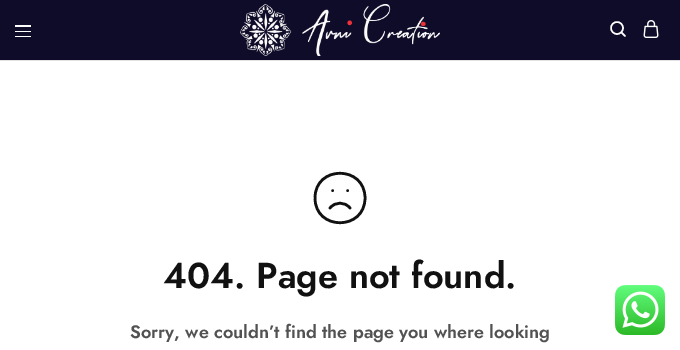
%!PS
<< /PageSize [680 350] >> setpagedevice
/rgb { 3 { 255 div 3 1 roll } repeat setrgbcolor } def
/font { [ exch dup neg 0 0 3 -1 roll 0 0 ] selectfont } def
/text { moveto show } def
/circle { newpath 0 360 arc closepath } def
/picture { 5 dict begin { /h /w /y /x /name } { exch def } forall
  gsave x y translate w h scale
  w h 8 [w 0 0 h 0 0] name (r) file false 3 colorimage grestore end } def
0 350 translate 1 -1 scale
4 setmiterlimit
255 255 255 rgb
0 0 680 350 rectfill
226 226 226 rgb
0 60 680 1 rectfill
15 12 41 rgb
0 0 680 60 rectfill
255 255 255 rgb
15 25 16 2 rectfill
15 31 16 1 rectfill
15 36 16 1 rectfill
(img_01.rgb) 240 4 200 52 picture
1.5 setlinewidth
617 28 6 circle stroke
1 setlinecap
1 setlinejoin
625 36 moveto -3.5 -3.5 rlineto stroke
(img_02.rgb) 643 20 16 18 picture
17 17 17 rgb
2.6 setlinewidth
350 208 moveto -5 -6.5 -15 -6.5 -20 0 rcurveto 332.5 190.5 moveto 0 0 rlineto 347.5 190.5 moveto 0 0 rlineto 365 198 moveto 0 33 -50 33 -50 0 rcurveto 0 -33 50 -33 50 0 rcurveto closepath stroke
(img_03.rgb) 615 285 50 50 picture
/Jost-SemiBold 36 font
(404. Page not found.) 163 288 text
/Jost-SemiBold 18 font
82 82 82 rgb
(Sorry, we couldn’t find the page you where looking) 130 338 text
showpage
